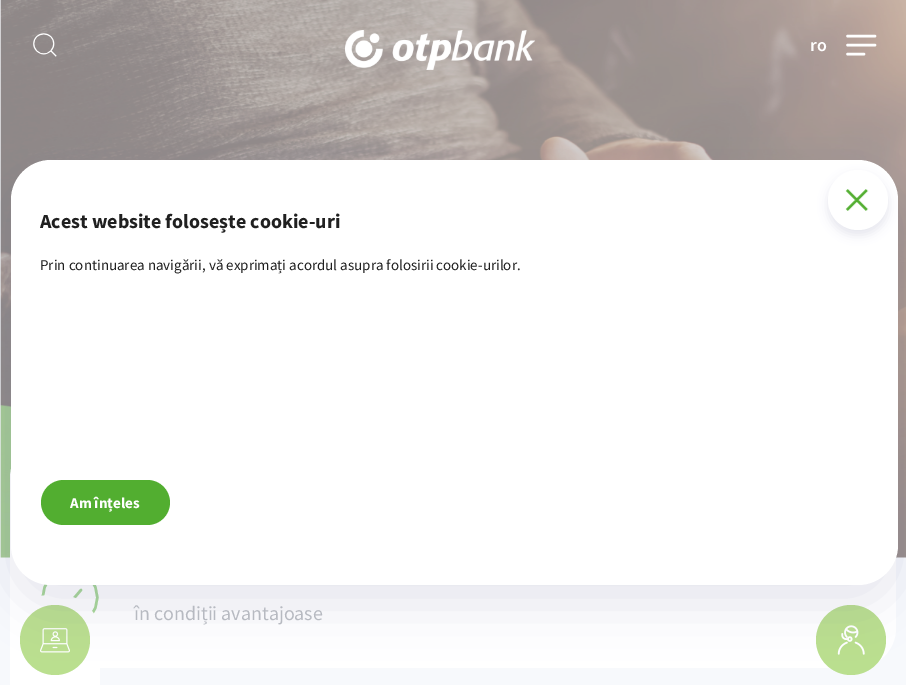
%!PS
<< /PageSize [906 685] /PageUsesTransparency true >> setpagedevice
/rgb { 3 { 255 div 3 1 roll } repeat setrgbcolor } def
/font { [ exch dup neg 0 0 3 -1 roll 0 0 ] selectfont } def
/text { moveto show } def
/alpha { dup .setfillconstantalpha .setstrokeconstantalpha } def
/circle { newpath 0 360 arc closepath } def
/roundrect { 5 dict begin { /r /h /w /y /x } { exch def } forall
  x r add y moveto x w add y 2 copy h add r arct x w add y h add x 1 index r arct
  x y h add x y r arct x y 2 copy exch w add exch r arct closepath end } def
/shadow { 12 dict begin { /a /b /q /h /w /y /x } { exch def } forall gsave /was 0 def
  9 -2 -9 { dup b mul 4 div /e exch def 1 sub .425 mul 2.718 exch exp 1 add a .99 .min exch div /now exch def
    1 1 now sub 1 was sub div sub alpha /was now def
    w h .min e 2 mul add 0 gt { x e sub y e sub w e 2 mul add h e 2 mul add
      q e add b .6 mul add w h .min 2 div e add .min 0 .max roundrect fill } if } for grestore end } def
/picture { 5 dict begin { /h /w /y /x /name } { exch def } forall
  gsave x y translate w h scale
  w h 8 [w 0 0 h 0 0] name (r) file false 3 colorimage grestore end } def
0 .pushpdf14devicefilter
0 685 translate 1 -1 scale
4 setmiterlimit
247 249 252 rgb
0 0 906 685 rectfill
(img_05.rgb) 0 0 906 558 picture
(img_01.rgb) 33 33 24 24 picture
(img_02.rgb) 345 30 190 40 picture
255 255 255 rgb
2.5 setlinewidth
1 setlinecap
847.5 36 moveto 27.5 0 rlineto 847.5 45 moveto 27.5 0 rlineto 847.5 54 moveto 16.5 0 rlineto stroke
10 438 886 230 40 roundrect fill
169 215 152 rgb
1 setlinejoin
89.5 578 moveto 10.5 11 10.5 28 0 39 rcurveto -11 10.5 -28 10.5 -39 0 rcurveto -10.5 -11 -10.5 -28 0 -39 rcurveto 11 -10.5 28 -10.5 39 0 rcurveto 59 600 moveto 7 7.5 rlineto 15 -17.5 rlineto stroke
255 255 255 rgb
10 595 90 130 40 roundrect fill
186 223 143 rgb
55 640 35 circle fill
(img_04.rgb) 40 628 30 25 picture
851 640 35 circle fill
(img_06.rgb) 837 625 28 30 picture
73 92 136 rgb
11 180 887 425 40 25 0.15 shadow
255 255 255 rgb
11 160 887 425 40 roundrect fill
73 92 136 rgb
828 175 60 60 30 5 0.15 shadow
255 255 255 rgb
858 200 30 circle fill
(img_03.rgb) 845 189 24 22 picture
82 174 48 rgb
41 480 129 45 22.5 roundrect fill
/SourceSansPro-SemiBold 18 font
255 255 255 rgb
(ro) 810 51 text
/SourceSansPro-Bold 20 font
32 32 32 rgb
(Acest website folosește cookie-uri) 40 228 text
/SourceSansPro-Regular 15 font
(Prin continuarea navigării, vă exprimați acordul asupra folosirii cookie-urilor.) 40 270 text
/SourceSansPro-Bold 15 font
255 255 255 rgb
(Am înțeles) 70 508 text
/SourceSansPro-Regular 20 font
183 186 193 rgb
(în condiții avantajoase) 134 620 text
.poppdf14devicefilter showpage
